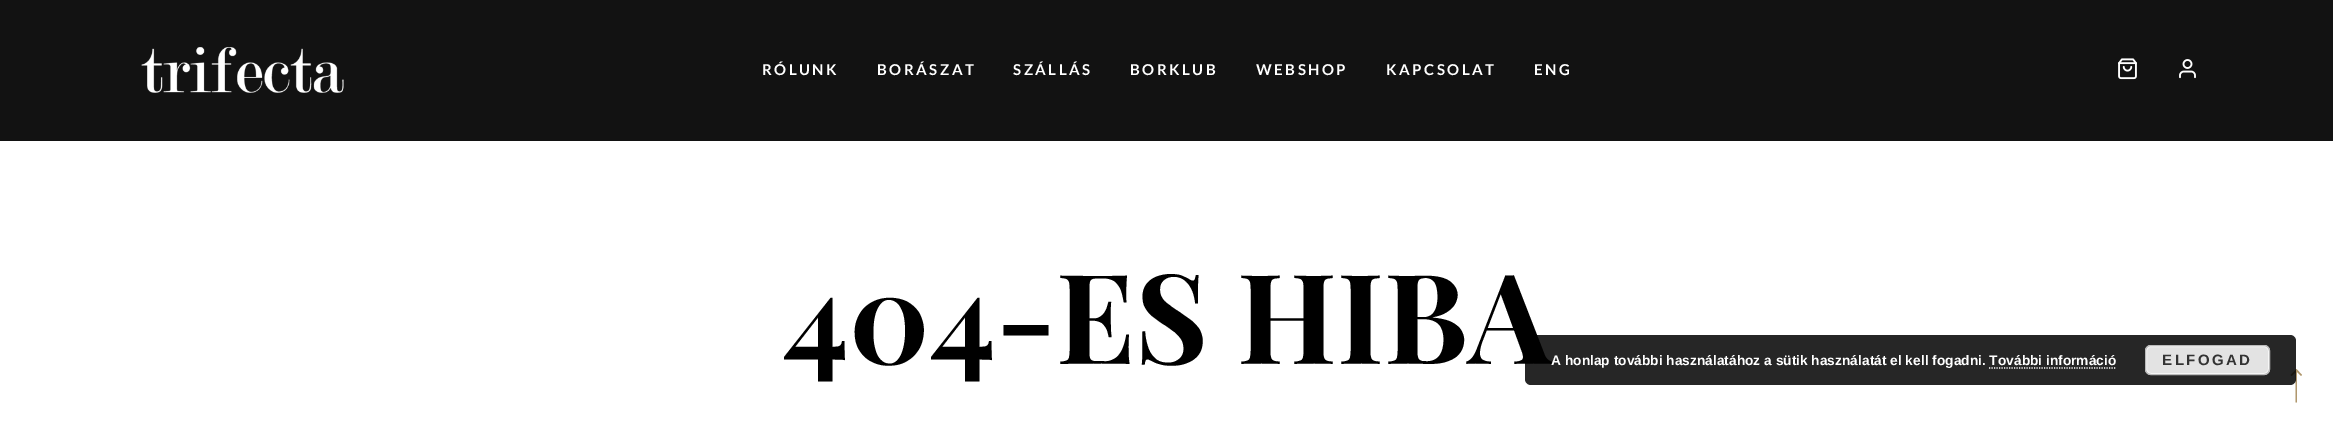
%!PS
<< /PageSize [2333 422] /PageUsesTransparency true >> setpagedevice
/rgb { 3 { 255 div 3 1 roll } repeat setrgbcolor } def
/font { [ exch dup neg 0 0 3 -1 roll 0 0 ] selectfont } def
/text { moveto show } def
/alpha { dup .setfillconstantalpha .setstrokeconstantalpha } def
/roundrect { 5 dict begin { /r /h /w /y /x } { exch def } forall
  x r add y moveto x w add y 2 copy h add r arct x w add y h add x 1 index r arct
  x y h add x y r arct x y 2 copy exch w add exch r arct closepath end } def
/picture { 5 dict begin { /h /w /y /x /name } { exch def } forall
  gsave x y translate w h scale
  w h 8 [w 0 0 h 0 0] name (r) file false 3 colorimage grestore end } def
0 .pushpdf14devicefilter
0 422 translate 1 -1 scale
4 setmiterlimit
255 255 255 rgb
0 0 2333 422 rectfill
18 18 18 rgb
0 0 2333 141 rectfill
(img_01.rgb) 141 47 203 46 picture
(img_02.rgb) 2118 58 19 22 picture
(img_03.rgb) 2179 59 17 20 picture
176 151 109 rgb
2297 372 moveto 0 30.5 rlineto -1.5 0 rlineto 0 -30 rlineto -4 3.5 rlineto -1 -1 rlineto 5 -5 rlineto 0 -0.5 rlineto 1 -0.5 rlineto 5.5 6 rlineto -1 1 rlineto closepath eofill
/Lato-Bold 15 font
255 255 255 rgb
762 75 moveto 2.5 0 (RÓLUNK) ashow
877 75 moveto 2.5 0 (BORÁSZAT) ashow
1013 75 moveto 2.5 0 (SZÁLLÁS) ashow
1130 75 moveto 2.5 0 (BORKLUB) ashow
1256 75 moveto 2.5 0 (WEBSHOP) ashow
1386 75 moveto 2.5 0 (KAPCSOLAT) ashow
1534 75 moveto 2.5 0 (ENG) ashow
/PlayfairDisplay-Bold 125 font
0 0 0 rgb
(404-ES HIBA) 783 364 text
0.85 alpha
1525 335 771 50 6 roundrect fill
/LiberationSans-Bold 13.75 font
1 alpha
255 255 255 rgb
(A honlap további használatához a sütik használatát el kell fogadni. További információ) 1551 365 text
227 227 227 rgb
2145 345 125 30 6 roundrect fill
246 246 246 rgb
2146.5 346.5 122 27 4.5 roundrect stroke
187 187 187 rgb
2145.5 345.5 124 29 5.5 roundrect stroke
/LiberationSans-Bold 15 font
51 51 51 rgb
2162 365 moveto 2.5 0 (ELFOGAD) ashow
255 255 255 rgb
1.2 setlinewidth
[1.25 1.25] 0 setdash
1989 368 moveto 127 0 rlineto stroke
.poppdf14devicefilter showpage
